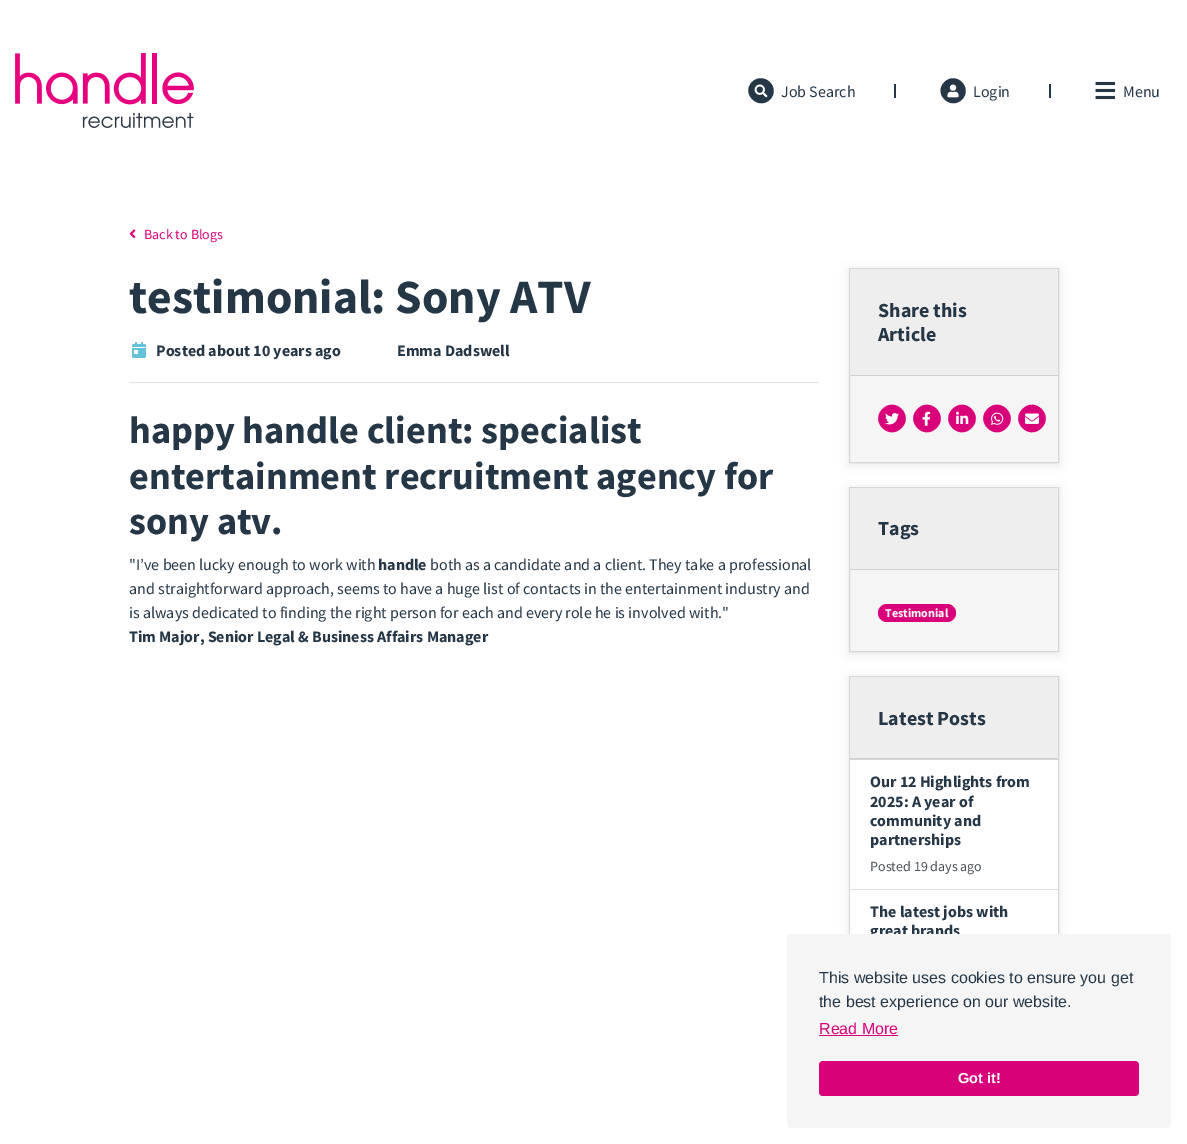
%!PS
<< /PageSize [1187 1144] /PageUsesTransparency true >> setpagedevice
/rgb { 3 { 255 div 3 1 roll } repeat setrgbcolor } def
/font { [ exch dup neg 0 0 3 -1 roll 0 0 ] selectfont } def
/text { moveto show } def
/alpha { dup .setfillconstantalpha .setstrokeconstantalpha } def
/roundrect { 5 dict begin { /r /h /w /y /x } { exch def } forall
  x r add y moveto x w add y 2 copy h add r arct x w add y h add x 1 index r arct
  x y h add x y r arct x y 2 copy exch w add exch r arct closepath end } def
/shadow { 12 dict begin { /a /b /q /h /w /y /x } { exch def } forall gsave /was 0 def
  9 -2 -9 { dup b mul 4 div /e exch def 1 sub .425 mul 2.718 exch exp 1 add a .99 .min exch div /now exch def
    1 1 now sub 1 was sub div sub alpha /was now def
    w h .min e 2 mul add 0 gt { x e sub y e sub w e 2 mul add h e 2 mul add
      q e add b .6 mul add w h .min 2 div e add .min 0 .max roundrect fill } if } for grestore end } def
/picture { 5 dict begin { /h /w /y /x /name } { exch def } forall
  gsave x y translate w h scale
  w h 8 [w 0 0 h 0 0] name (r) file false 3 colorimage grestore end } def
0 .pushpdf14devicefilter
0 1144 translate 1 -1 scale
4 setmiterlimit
255 255 255 rgb
0 0 1187 1144 rectfill
(img_01.rgb) 15 53 179 75 picture
37 55 70 rgb
752 82 moveto 12 -11.5 29.5 6 18 17.5 rcurveto -11.5 11.5 -29.5 -6 -18 -17.5 rcurveto closepath fill
(img_02.rgb) 754 84 14 14 picture
894 84 2 14 rectfill
944.5 82 moveto 11.5 -11.5 29 6 17.5 17.5 rcurveto -11.5 11.5 -29.5 -6 -17.5 -17.5 rcurveto closepath fill
(img_03.rgb) 947 84 12 14 picture
1049 84 2 14 rectfill
(img_04.rgb) 1095 81 21 19 picture
(img_05.rgb) 129 229 7 10 picture
222 226 230 rgb
129 382 690 1 rectfill
(img_06.rgb) 132 342 14 16 picture
0 0 0 rgb
849 270 210 195 0 5 0.1 shadow
245 245 245 rgb
850 376 208 86 rectfill
214 214 214 rgb
849.5 268.5 209 194 rectstroke
238 238 238 rgb
850 269 208 106 rectfill
208 208 208 rgb
850 375 208 1 rectfill
217 1 122 rgb
882.5 409 moveto 12.5 -13 32 6.5 19 19 rcurveto -12.5 13 -32 -6.5 -19 -19 rcurveto closepath fill
(img_07.rgb) 885 413 14 12 picture
917.5 409 moveto 12.5 -13 32 6.5 19 19 rcurveto -12.5 13 -32 -6.5 -19 -19 rcurveto closepath fill
(img_08.rgb) 922 411 9 15 picture
952.5 409 moveto 12.5 -13 32 6.5 19 19 rcurveto -12.5 13 -32 -6.5 -19 -19 rcurveto closepath fill
(img_09.rgb) 956 411 13 13 picture
987.5 409 moveto 12.5 -13 32 6.5 19 19 rcurveto -12.5 13 -32 -6.5 -19 -19 rcurveto closepath fill
(img_10.rgb) 991 412 13 13 picture
1022.5 409 moveto 12.5 -13 32 6.5 19 19 rcurveto -12.5 13 -32 -6.5 -19 -19 rcurveto closepath fill
(img_11.rgb) 1025 413 14 11 picture
0 0 0 rgb
849 489 210 165 0 5 0.1 shadow
245 245 245 rgb
850 570 208 81 rectfill
214 214 214 rgb
849.5 487.5 209 164 rectstroke
238 238 238 rgb
850 488 208 81 rectfill
208 208 208 rgb
850 569 208 1 rectfill
217 1 122 rgb
878 604 78 18 9 roundrect fill
0 0 0 rgb
849 678 210 415 0 5 0.1 shadow
214 214 214 rgb
849.5 676.5 209 414 rectstroke
238 238 238 rgb
850 677 208 81 rectfill
208 208 208 rgb
850 758 208 1 rectfill
214 214 214 rgb
850 759 208 1 rectfill
255 255 255 rgb
850 760 208 129 rectfill
223 223 223 rgb
850 889 208 1 rectfill
255 255 255 rgb
850 890 208 44 rectfill
/SourceSansPro-Regular 16 font
37 55 70 rgb
(Job Search) 781 97 text
(Login) 973 97 text
(Menu) 1123 97 text
/SourceSansPro-Regular 14 font
217 1 122 rgb
(Back to Blogs) 144 239 text
/SourceSansPro-Bold 47.75 font
37 55 70 rgb
(testimonial: Sony ATV) 129 313 text
/SourceSansPro-Bold 16 font
(Posted about 10 years ago) 156 356 text
(Emma Dadswell) 397 356 text
/SourceSansPro-Bold 38.25 font
(happy handle client: specialist) 129 443 text
(entertainment recruitment agency for) 129 489 text
(sony atv.) 129 534 text
/SourceSansPro-Regular 16 font
("I’ve been lucky enough to work with) 129 570 text
/SourceSansPro-Bold 16 font
(handle) 378 570 text
/SourceSansPro-Regular 16 font
(both as a candidate and a client. They take a professional) 430 570 text
(and straightforward approach, seems to have a huge list of contacts in the entertainment industry and) 129 594 text
(is always dedicated to finding the right person for each and every role he is involved with.") 129 618 text
/SourceSansPro-Bold 16 font
(Tim Major, Senior Legal & Business Affairs Manager) 129 642 text
/SourceSansPro-Bold 20 font
(Share this) 878 317 text
(Article) 878 341 text
(Tags) 878 535 text
/SourceSansPro-Bold 12 font
255 255 255 rgb
(Testimonial) 885 617 text
/SourceSansPro-Bold 20 font
37 55 70 rgb
(Latest Posts) 878 725 text
/SourceSansPro-Bold 16 font
(Our 12 Highlights from) 870 787 text
(2025: A year of) 870 807 text
(community and) 870 826 text
(partnerships) 870 845 text
/SourceSansPro-Regular 14 font
73 80 87 rgb
(Posted 19 days ago) 870 871 text
/SourceSansPro-Bold 16 font
37 55 70 rgb
(The latest jobs with) 870 917 text
(great brands) 870 936 text
245 245 245 rgb
787 934 384 194 4 roundrect fill
/LiberationSans-Regular 16 font
37 55 70 rgb
(This website uses cookies to ensure you get) 819 983 text
(the best experience on our website.) 819 1007 text
217 1 122 rgb
(Read More) 819 1034 text
819 1035 79 1 rectfill
819 1061 320 35 4 roundrect fill
/LiberationSans-Bold 14.5 font
255 255 255 rgb
(Got it!) 958 1083 text
.poppdf14devicefilter showpage
